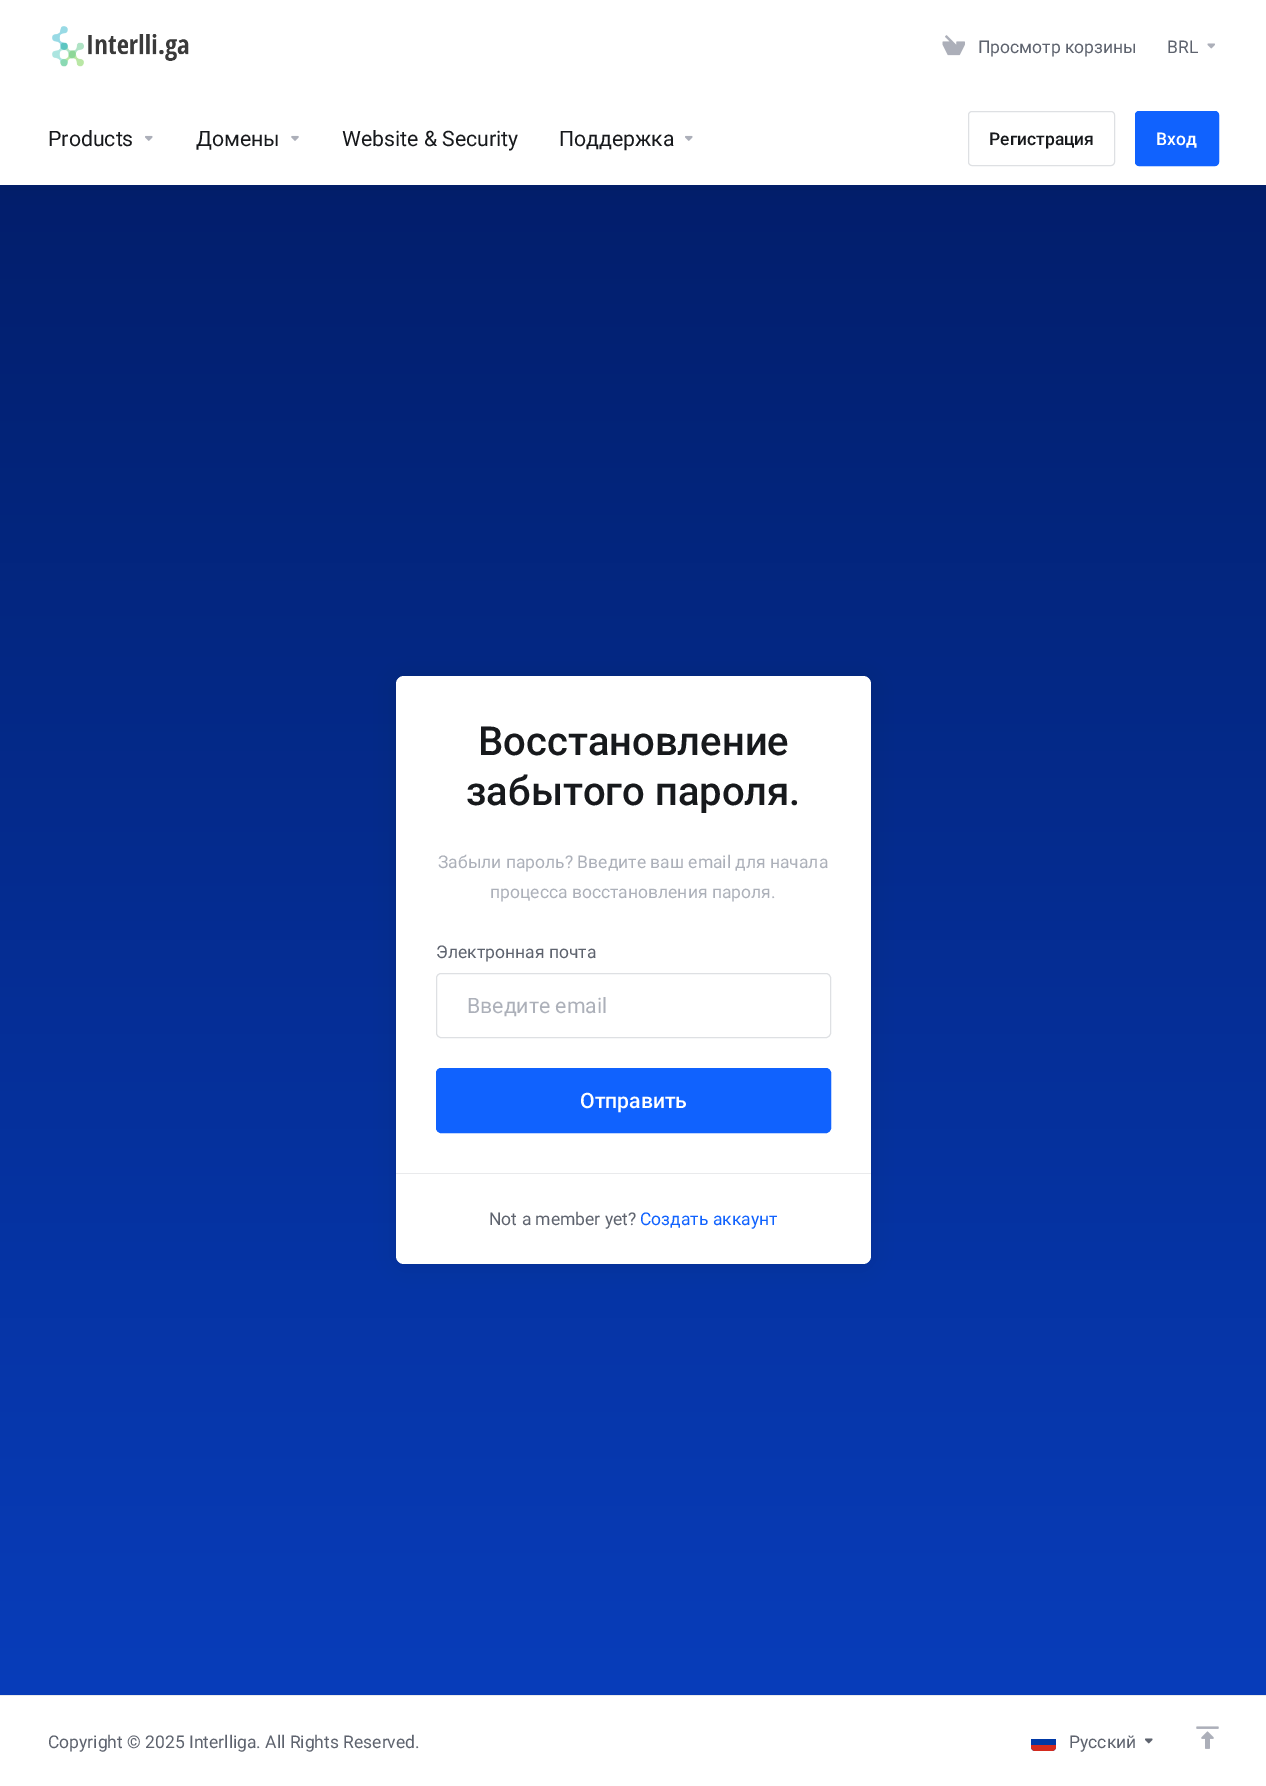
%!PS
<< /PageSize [1266 1786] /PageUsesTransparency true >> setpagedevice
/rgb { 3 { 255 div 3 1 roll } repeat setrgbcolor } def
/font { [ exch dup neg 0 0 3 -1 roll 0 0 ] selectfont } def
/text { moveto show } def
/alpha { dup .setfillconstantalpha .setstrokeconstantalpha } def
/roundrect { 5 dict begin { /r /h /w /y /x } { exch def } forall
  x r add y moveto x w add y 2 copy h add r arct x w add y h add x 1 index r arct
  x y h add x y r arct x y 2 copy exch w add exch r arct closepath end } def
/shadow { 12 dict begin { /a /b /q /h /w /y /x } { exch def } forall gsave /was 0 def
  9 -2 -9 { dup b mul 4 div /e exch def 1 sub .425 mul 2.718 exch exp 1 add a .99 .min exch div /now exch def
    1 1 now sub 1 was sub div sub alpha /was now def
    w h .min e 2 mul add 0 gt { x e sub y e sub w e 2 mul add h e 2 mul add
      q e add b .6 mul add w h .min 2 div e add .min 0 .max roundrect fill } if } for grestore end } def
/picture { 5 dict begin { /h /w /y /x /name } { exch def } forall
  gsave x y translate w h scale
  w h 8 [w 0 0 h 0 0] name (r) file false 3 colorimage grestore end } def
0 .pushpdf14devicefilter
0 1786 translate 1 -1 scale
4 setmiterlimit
255 255 255 rgb
0 0 1266 1786 rectfill
gsave 0 185 moveto 1266 0 rlineto 0 1510 rlineto -1266 0 rlineto closepath clip newpath
<< /ShadingType 2 /ColorSpace /DeviceRGB /Coords [633 1786 633 0] /Extend [true true] /Function << /FunctionType 2 /Domain [0 1] /C0 [0.031 0.247 0.749] /C1 [0.004 0.102 0.384] /N 1 >> >> shfill grestore
0 0 0 rgb
0 3 1266 185 0 10 0.08 shadow
255 255 255 rgb
0 0 1266 185 rectfill
(img_01.rgb) 52 26 137 41 picture
(img_02.rgb) 942 35 23 21 picture
(img_03.rgb) 1207 43 8 6 picture
(img_04.rgb) 145 135 8 6 picture
(img_05.rgb) 291 135 8 6 picture
(img_04.rgb) 685 135 8 6 picture
222 224 227 rgb
968.5 111.5 146 54 3.5 roundrect stroke
16 98 254 rgb
1135.5 111.5 83 54 3.5 roundrect gsave fill grestore
stroke
0 0 0 rgb
396 679 475 587 8 10 0.08 shadow
396 676 475 588 8 0.5 0.1 shadow
255 255 255 rgb
396 676 475 588 8 roundrect fill
222 224 227 rgb
436.5 973.5 394 64 4.5 roundrect stroke
16 98 254 rgb
436.5 1068.5 394 64 4.5 roundrect gsave fill grestore
stroke
233 234 236 rgb
396 1173 475 1 rectfill
0 1695 1266 1 rectfill
0 57 166 rgb
1031 1739 moveto 25 0 rlineto 0 8 rlineto 0 2 -2 4 -4 4 rcurveto -17 0 rlineto -2 0 -4 -2 -4 -4 rcurveto closepath fill
213 43 30 rgb
1031 1745 moveto 25 0 rlineto 0 2 rlineto 0 2 -2 4 -4 4 rcurveto -17 0 rlineto -2 0 -4 -2 -4 -4 rcurveto closepath fill
(img_06.rgb) 1145 1738 8 6 picture
(img_07.rgb) 1196 1726 23 23 picture
/Roboto-Regular 17.5 font
94 99 110 rgb
(Просмотр корзины) 978 53 text
(BRL) 1167 53 text
/Roboto-Regular 21.25 font
23 25 28 rgb
(Products) 48 146 text
(Домены) 196 146 text
(Website & Security) 342 146 text
(Поддержка) 559 146 text
/Roboto-Medium 17.5 font
(Регистрация) 989 145 text
255 255 255 rgb
(Вход) 1156 145 text
/Roboto-Medium 40 font
23 25 28 rgb
(Восстановление) 478 755 text
(забытого пароля.) 466 805 text
/Roboto-Regular 17.5 font
172 176 185 rgb
(Забыли пароль? Введите ваш email для начала) 438 868 text
(процесса восстановления пароля.) 490 898 text
94 99 110 rgb
(Электронная почта) 436 958 text
/Roboto-Regular 21.25 font
172 176 185 rgb
(Введите email) 467 1013 text
/Roboto-Medium 21.25 font
255 255 255 rgb
(Отправить) 580 1108 text
/Roboto-Regular 17.5 font
94 99 110 rgb
(Not a member yet?) 489 1225 text
16 98 254 rgb
(Создать аккаунт) 640 1225 text
94 99 110 rgb
(Copyright © 2025 Interlliga. All Rights Reserved.) 48 1748 text
(Русский) 1069 1748 text
.poppdf14devicefilter showpage
